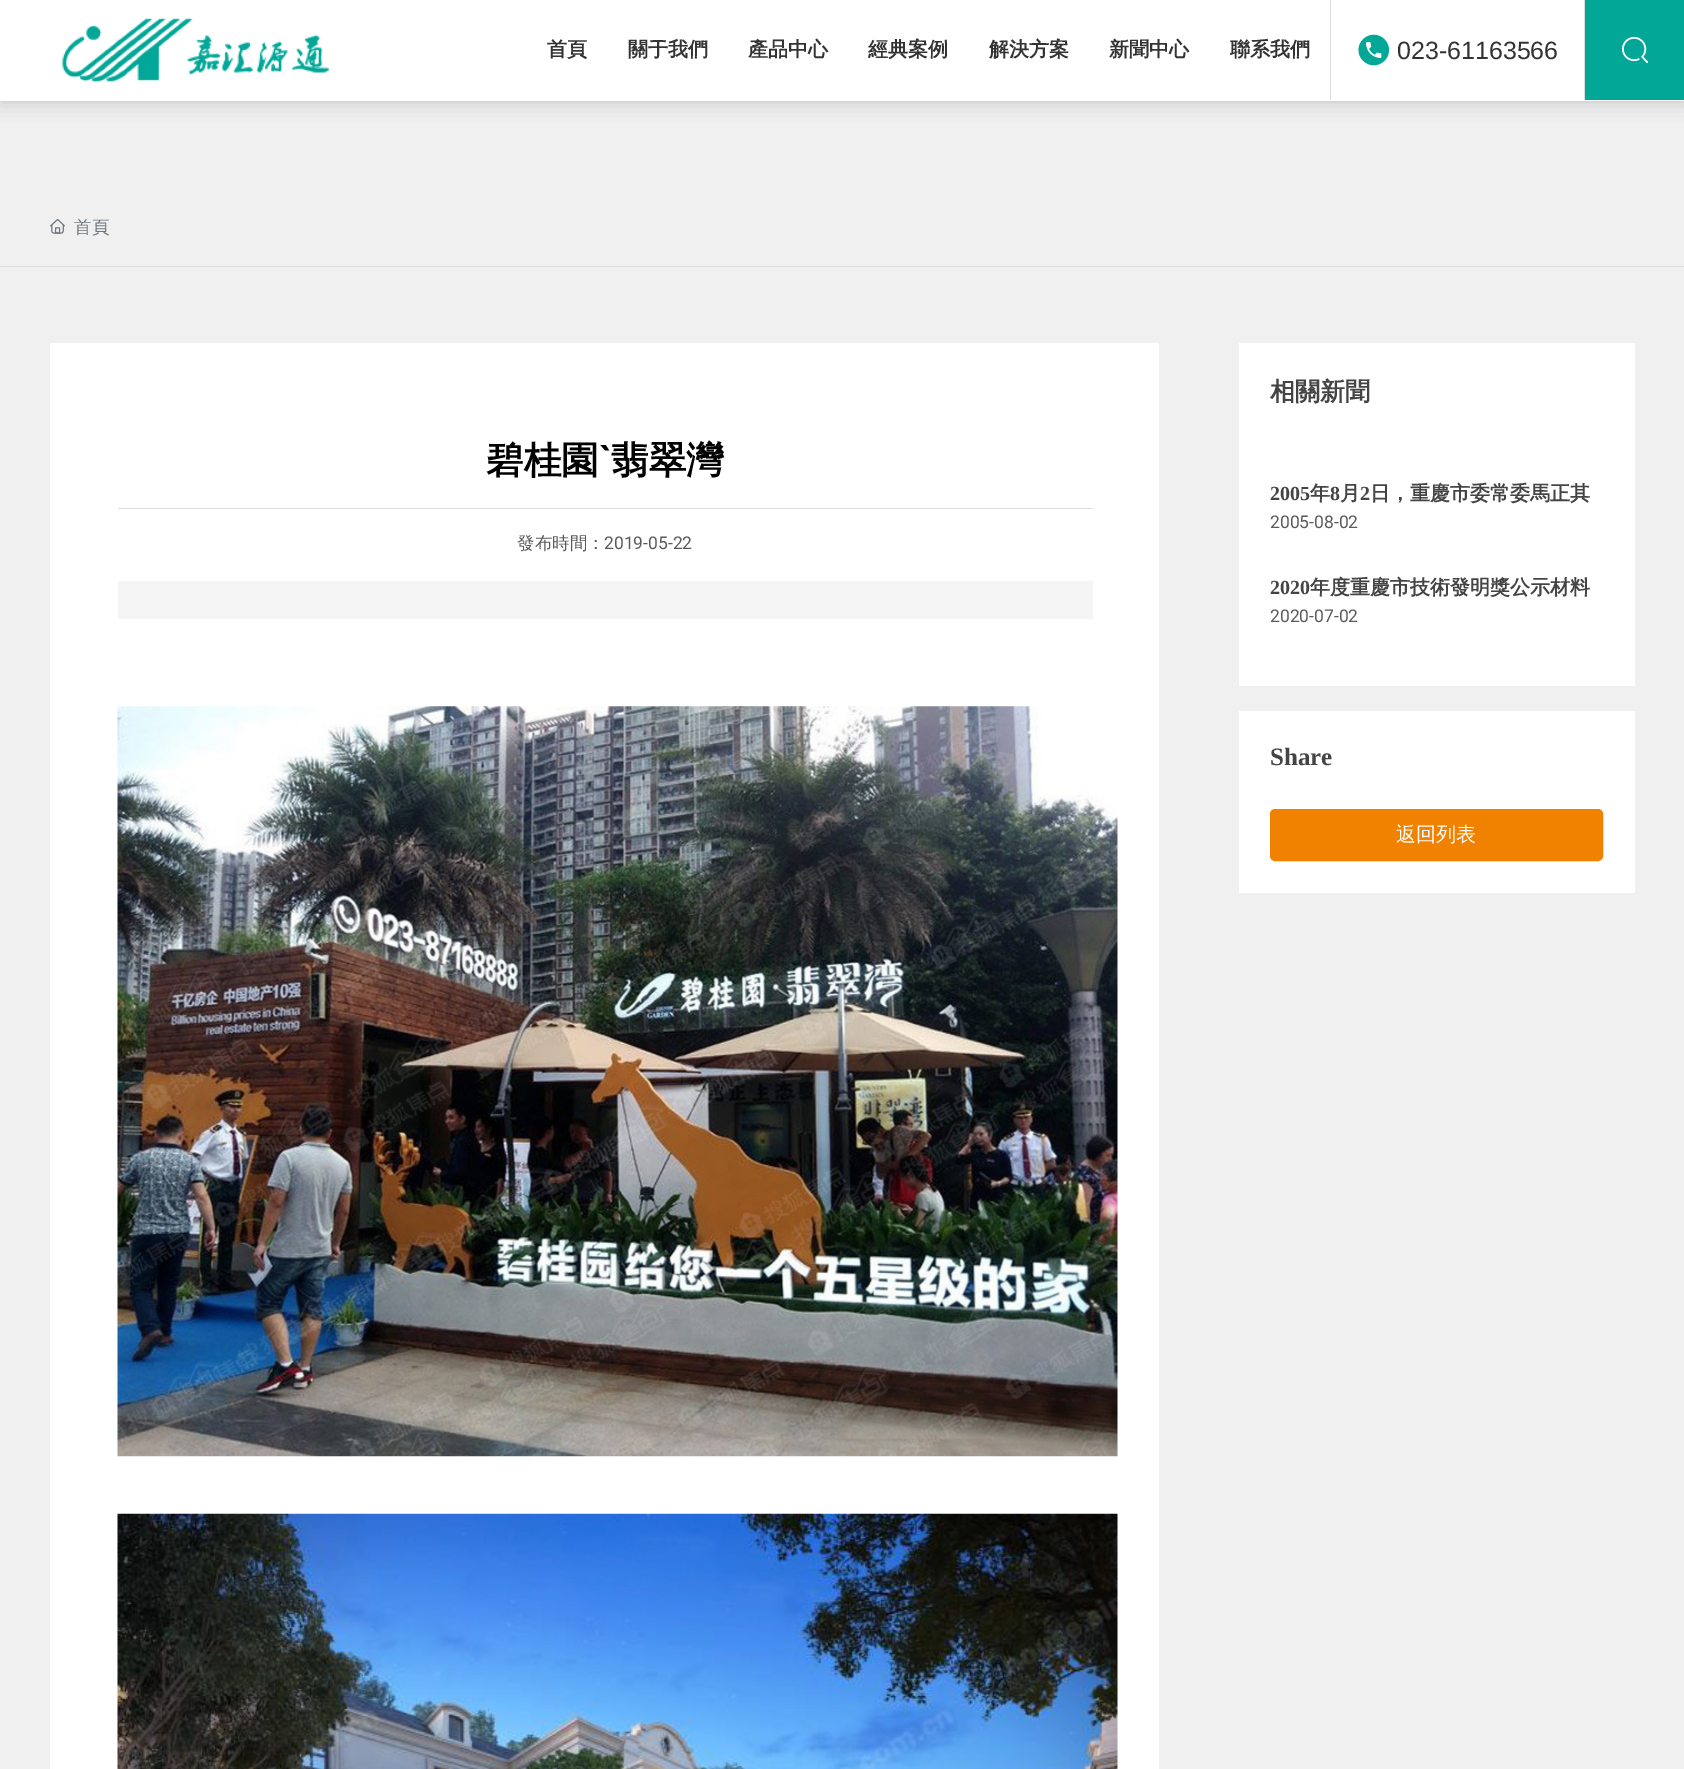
%!PS
<< /PageSize [1684 1769] /PageUsesTransparency true >> setpagedevice
/rgb { 3 { 255 div 3 1 roll } repeat setrgbcolor } def
/font { [ exch dup neg 0 0 3 -1 roll 0 0 ] selectfont } def
/text { moveto show } def
/alpha { dup .setfillconstantalpha .setstrokeconstantalpha } def
/roundrect { 5 dict begin { /r /h /w /y /x } { exch def } forall
  x r add y moveto x w add y 2 copy h add r arct x w add y h add x 1 index r arct
  x y h add x y r arct x y 2 copy exch w add exch r arct closepath end } def
/shadow { 12 dict begin { /a /b /q /h /w /y /x } { exch def } forall gsave /was 0 def
  9 -2 -9 { dup b mul 4 div /e exch def 1 sub .425 mul 2.718 exch exp 1 add a .99 .min exch div /now exch def
    1 1 now sub 1 was sub div sub alpha /was now def
    w h .min e 2 mul add 0 gt { x e sub y e sub w e 2 mul add h e 2 mul add
      q e add b .6 mul add w h .min 2 div e add .min 0 .max roundrect fill } if } for grestore end } def
/picture { 5 dict begin { /h /w /y /x /name } { exch def } forall
  gsave x y translate w h scale
  w h 8 [w 0 0 h 0 0] name (r) file false 3 colorimage grestore end } def
0 .pushpdf14devicefilter
0 1769 translate 1 -1 scale
4 setmiterlimit
240 240 240 rgb
0 0 1684 1769 rectfill
0 0 0 rgb
0 0 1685 101 0 9.5 0.2 shadow
255 255 255 rgb
0 0 1684 101 rectfill
(img_01.rgb) 62 18 267 64 picture
221 221 221 rgb
1584 0 1 100 rectfill
1330 0 1 100 rectfill
(img_02.rgb) 1358 34 32 32 picture
2 167 151 rgb
1585 0 99 100 rectfill
(img_03.rgb) 1622 36 27 28 picture
221 221 221 rgb
0 266 1684 1 rectfill
(img_04.rgb) 50 219 15 15 picture
255 255 255 rgb
50 343 1109 1426 rectfill
221 221 221 rgb
118 508 975 1 rectfill
245 245 245 rgb
118 581 975 38 rectfill
(img_05.rgb) 117 706 1001 751 picture
(img_06.rgb) 117 1513 1001 256 picture
255 255 255 rgb
1239 343 396 343 rectfill
1239 711 396 182 rectfill
240 130 0 rgb
1270.5 809.5 332 51 4.5 roundrect gsave fill grestore
stroke
/WenQuanYiZenHei-Bold 20 font
51 51 51 rgb
(首頁) 547 56 text
(關于我們) 628 56 text
(產品中心) 748 56 text
(經典案例) 868 56 text
(解決方案) 989 56 text
(新聞中心) 1109 56 text
(聯系我們) 1230 56 text
/LiberationSans-Regular 25 font
(023-61163566) 1397 59 text
/WenQuanYiZenHei-Medium 17.5 font
108 117 125 rgb
(首頁) 74 233 text
/WenQuanYiZenHei-Bold 37.5 font
0 0 0 rgb
(碧桂園) 486 473 text
/Roboto-Bold 37.5 font
(`) 599 473 text
/WenQuanYiZenHei-Bold 37.5 font
(翡翠灣) 611 473 text
/WenQuanYiZenHei-Medium 17.5 font
90 90 90 rgb
(發布時間：) 517 549 text
/Roboto-Regular 17.5 font
(2019-05-22) 604 549 text
/WenQuanYiZenHei-Bold 25 font
68 68 68 rgb
(相關新聞) 1270 400 text
/LiberationSerif-Bold 20 font
(2005) 1270 500 text
/WenQuanYiZenHei-Bold 20 font
(年) 1310 500 text
/LiberationSerif-Bold 20 font
(8) 1330 500 text
/WenQuanYiZenHei-Bold 20 font
(月) 1340 500 text
/LiberationSerif-Bold 20 font
(2) 1360 500 text
/WenQuanYiZenHei-Bold 20 font
(日，重慶市委常委馬正其) 1370 500 text
/Roboto-Regular 17.5 font
90 90 90 rgb
(2005-08-02) 1270 528 text
/LiberationSerif-Bold 20 font
68 68 68 rgb
(2020) 1270 594 text
/WenQuanYiZenHei-Bold 20 font
(年度重慶市技術發明獎公示材料) 1310 594 text
/Roboto-Regular 17.5 font
90 90 90 rgb
(2020-07-02) 1270 622 text
/LiberationSerif-Bold 25 font
68 68 68 rgb
(Share) 1270 765 text
/WenQuanYiZenHei-Medium 20 font
255 255 255 rgb
(返回列表) 1396 841 text
.poppdf14devicefilter showpage
